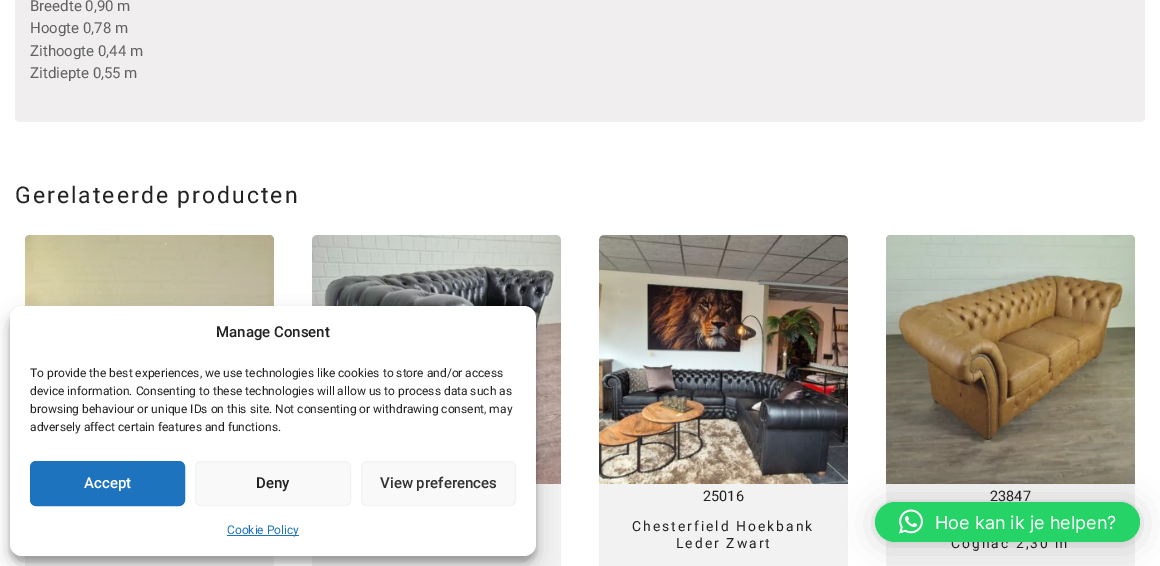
%!PS
<< /PageSize [1160 566] /PageUsesTransparency true >> setpagedevice
/rgb { 3 { 255 div 3 1 roll } repeat setrgbcolor } def
/font { [ exch dup neg 0 0 3 -1 roll 0 0 ] selectfont } def
/text { moveto show } def
/alpha { dup .setfillconstantalpha .setstrokeconstantalpha } def
/roundrect { 5 dict begin { /r /h /w /y /x } { exch def } forall
  x r add y moveto x w add y 2 copy h add r arct x w add y h add x 1 index r arct
  x y h add x y r arct x y 2 copy exch w add exch r arct closepath end } def
/shadow { 12 dict begin { /a /b /q /h /w /y /x } { exch def } forall gsave /was 0 def
  9 -2 -9 { dup b mul 4 div /e exch def 1 sub .425 mul 2.718 exch exp 1 add a .99 .min exch div /now exch def
    1 1 now sub 1 was sub div sub alpha /was now def
    w h .min e 2 mul add 0 gt { x e sub y e sub w e 2 mul add h e 2 mul add
      q e add b .6 mul add w h .min 2 div e add .min 0 .max roundrect fill } if } for grestore end } def
/picture { 5 dict begin { /h /w /y /x /name } { exch def } forall
  gsave x y translate w h scale
  w h 8 [w 0 0 h 0 0] name (r) file false 3 colorimage grestore end } def
0 .pushpdf14devicefilter
0 566 translate 1 -1 scale
4 setmiterlimit
255 255 255 rgb
0 0 1160 566 rectfill
240 238 239 rgb
15 -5 moveto 1130 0 rlineto 0 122 rlineto 0 3 -2 5 -5 5 rcurveto -1120 0 rlineto -3 0 -5 -2 -5 -5 rcurveto closepath fill
242 242 242 rgb
25 235 249 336 5 roundrect fill
(img_01.rgb) 25 235 249 71 picture
312 235 249 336 5 roundrect fill
(img_02.rgb) 312 235 249 249 picture
599 235 249 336 5 roundrect fill
(img_03.rgb) 599 235 249 249 picture
886 235 249 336 5 roundrect fill
(img_04.rgb) 886 235 249 249 picture
0 0 0 rgb
10 312 526 250 12 3 0.23 shadow
10 316 526 250 12 10 0.19 shadow
255 255 255 rgb
10 306 526 250 12 roundrect fill
30 115 190 rgb
30.5 461.5 154 44 5.5 roundrect gsave fill grestore
stroke
249 249 249 rgb
195.5 461.5 155 44 5.5 roundrect gsave fill grestore
242 242 242 rgb
stroke
249 249 249 rgb
361.5 461.5 154 44 5.5 roundrect gsave fill grestore
242 242 242 rgb
stroke
30 115 190 rgb
227 535 72 1 rectfill
0 0 0 rgb
875 504 265 40 20 16 0.16 shadow
875 503 265 40 20 3 0.06 shadow
/Roboto-Regular 15 font
98 98 98 rgb
(Breedte 0,90 m) 30 11 text
(Hoogte 0,78 m) 30 33 text
(Zithoogte 0,44 m) 30 56 text
(Zitdiepte 0,55 m) 30 78 text
/Roboto-Regular 23 font
34 34 34 rgb
15 203 moveto 2 0 (Gerelateerde producten) ashow
/Roboto-Regular 14.5 font
(25016) 703 501 text
/Roboto-Regular 13.9 font
632 531 moveto 2 0 (Chesterfield Hoekbank) ashow
676 548 moveto 2 0 (Leder Zwart) ashow
/Roboto-Regular 14.5 font
(23847) 990 501 text
/Roboto-Regular 13.9 font
951 548 moveto 2 0 (Cognac 2,30 m) ashow
/Roboto-Medium 15 font
(Manage Consent) 216 337 text
/Roboto-Regular 12 font
(To provide the best experiences, we use technologies like cookies to store and/or access) 30 377 text
(device information. Consenting to these technologies will allow us to process data such as) 30 395 text
(browsing behaviour or unique IDs on this site. Not consenting or withdrawing consent, may) 30 413 text
(adversely affect certain features and functions.) 30 431 text
/Roboto-Medium 15 font
255 255 255 rgb
(Accept) 84 488 text
34 34 34 rgb
(Deny) 256 488 text
51 51 51 rgb
(View preferences) 380 488 text
/Roboto-Regular 12 font
30 115 190 rgb
(Cookie Policy) 227 534 text
37 211 102 rgb
875 502 265 40 20 roundrect fill
(img_05.rgb) 899 509 24 25 picture
/Inter-Regular 18 font
255 255 255 rgb
(Hoe kan ik je helpen?) 935 529 text
.poppdf14devicefilter showpage
